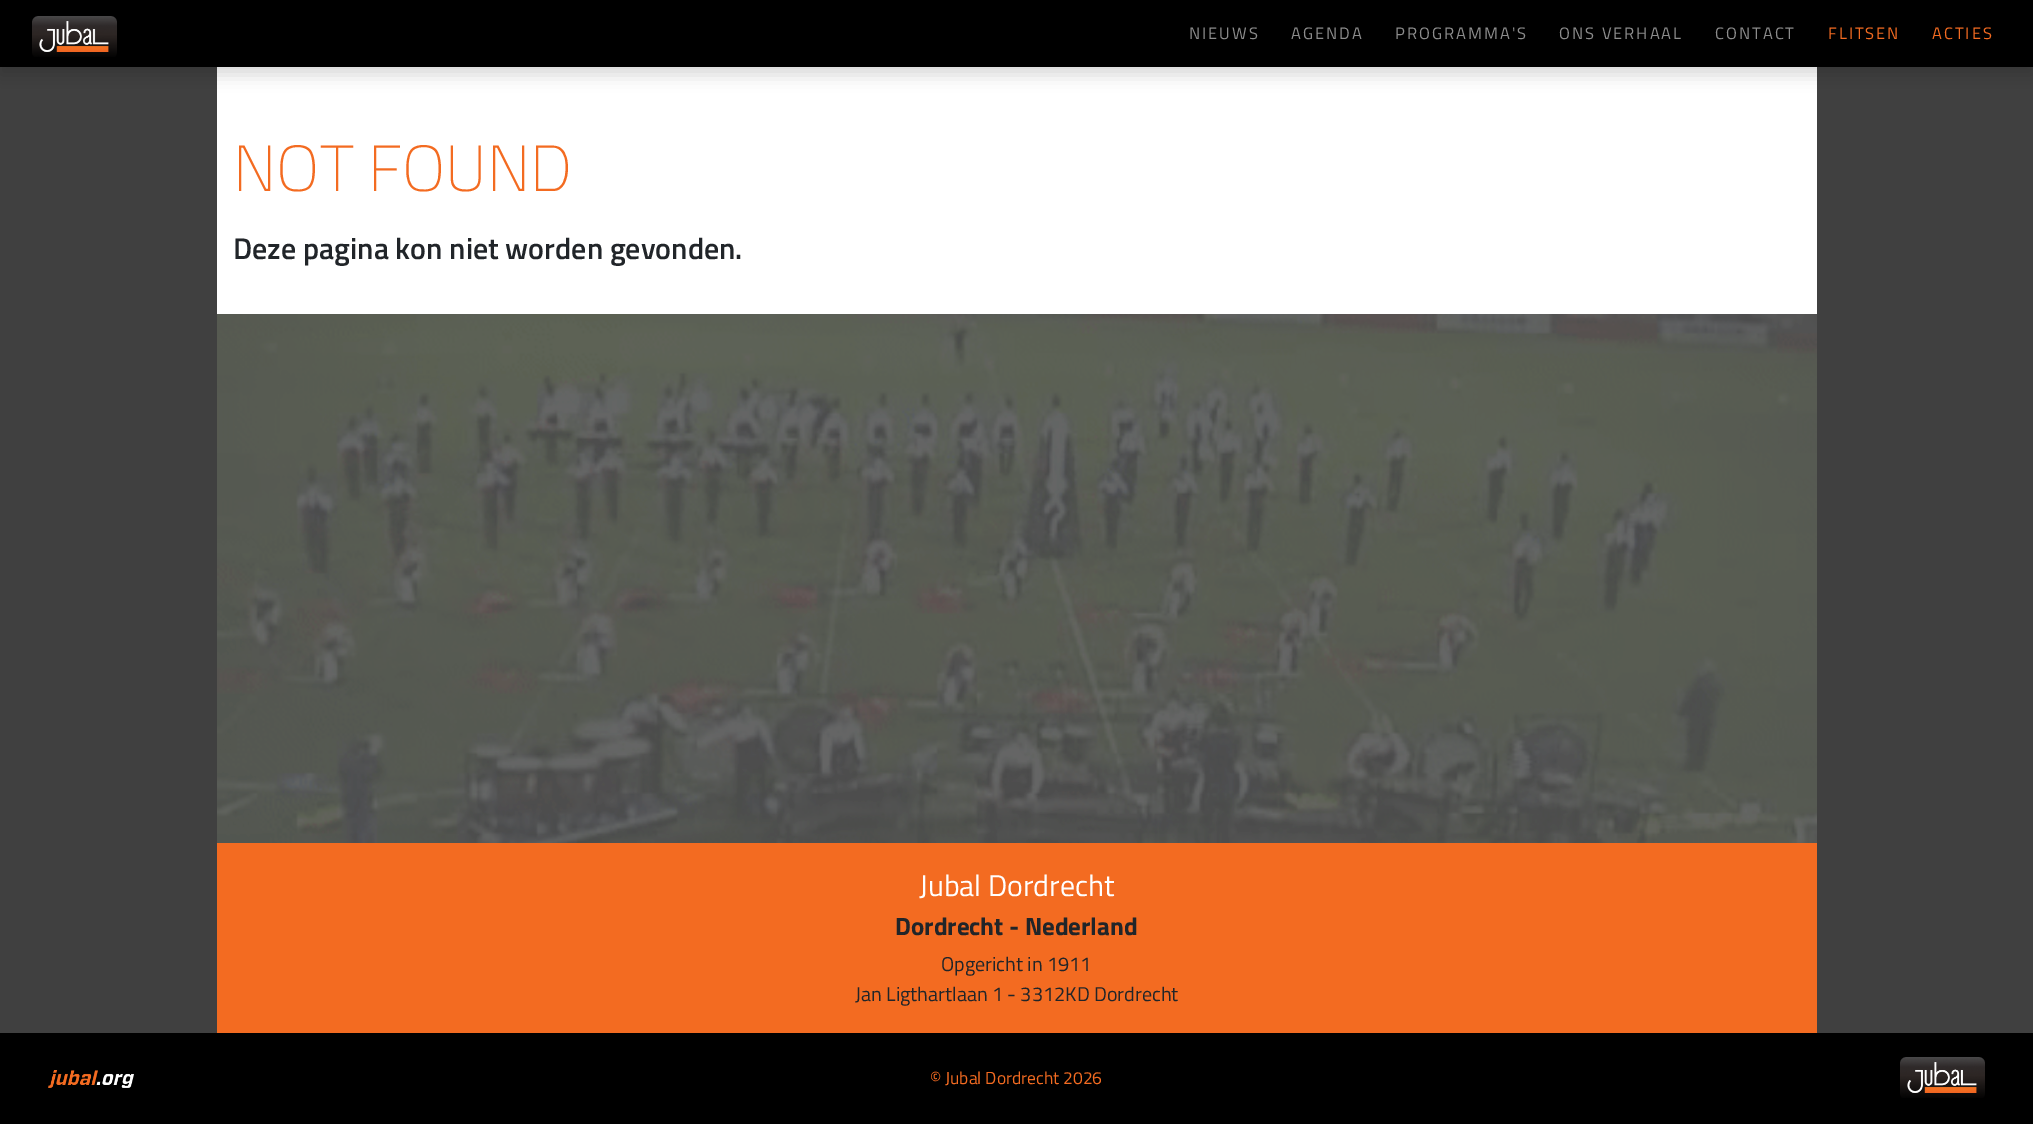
%!PS
<< /PageSize [2033 1124] /PageUsesTransparency true >> setpagedevice
/rgb { 3 { 255 div 3 1 roll } repeat setrgbcolor } def
/font { [ exch dup neg 0 0 3 -1 roll 0 0 ] selectfont } def
/text { moveto show } def
/alpha { dup .setfillconstantalpha .setstrokeconstantalpha } def
/roundrect { 5 dict begin { /r /h /w /y /x } { exch def } forall
  x r add y moveto x w add y 2 copy h add r arct x w add y h add x 1 index r arct
  x y h add x y r arct x y 2 copy exch w add exch r arct closepath end } def
/shadow { 12 dict begin { /a /b /q /h /w /y /x } { exch def } forall gsave /was 0 def
  9 -2 -9 { dup b mul 4 div /e exch def 1 sub .425 mul 2.718 exch exp 1 add a .99 .min exch div /now exch def
    1 1 now sub 1 was sub div sub alpha /was now def
    w h .min e 2 mul add 0 gt { x e sub y e sub w e 2 mul add h e 2 mul add
      q e add b .6 mul add w h .min 2 div e add .min 0 .max roundrect fill } if } for grestore end } def
/picture { 5 dict begin { /h /w /y /x /name } { exch def } forall
  gsave x y translate w h scale
  w h 8 [w 0 0 h 0 0] name (r) file false 3 colorimage grestore end } def
0 .pushpdf14devicefilter
0 1124 translate 1 -1 scale
4 setmiterlimit
64 64 64 rgb
0 0 2033 1124 rectfill
255 255 255 rgb
217 67 1600 247 rectfill
0 0 0 rgb
0 8 2033 67 0 8 0.15 shadow
0 0 2033 67 rectfill
(img_01.rgb) 32 16 85 41 picture
83 83 83 rgb
217 314 1600 529 rectfill
(img_02.rgb) 217 314 1600 529 picture
243 107 33 rgb
217 843 1600 190 rectfill
0 0 0 rgb
0 1033 2033 91 rectfill
(img_03.rgb) 48 1070 86 18 picture
(img_04.rgb) 1900 1057 85 41 picture
/TitilliumWeb-Regular 16.5 font
140 140 140 rgb
1189 39 moveto 2 0 (NIEUWS) ashow
1291 39 moveto 2 0 (AGENDA) ashow
1395 39 moveto 2 0 (PROGRAMMA'S) ashow
1559 39 moveto 2 0 (ONS VERHAAL) ashow
1715 39 moveto 2 0 (CONTACT) ashow
243 107 33 rgb
1828 39 moveto 2 0 (FLITSEN) ashow
1932 39 moveto 2 0 (ACTIES) ashow
/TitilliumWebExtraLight-ExtraLight 65 font
(NOT FOUND) 233 191 text
/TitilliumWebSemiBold-SemiBold 30 font
33 37 41 rgb
(Deze pagina kon niet worden gevonden.) 233 259 text
/TitilliumWeb-Regular 30 font
255 255 255 rgb
(Jubal Dordrecht) 919 896 text
/TitilliumWeb-Bold 25 font
33 37 41 rgb
(Dordrecht - Nederland) 895 935 text
/TitilliumWeb-Regular 20 font
(Opgericht in 1911) 941 971 text
(Jan Ligthartlaan 1 - 3312KD Dordrecht) 855 1001 text
/TitilliumWeb-Regular 17.5 font
243 107 33 rgb
(© Jubal Dordrecht 2026) 930 1084 text
.poppdf14devicefilter showpage
